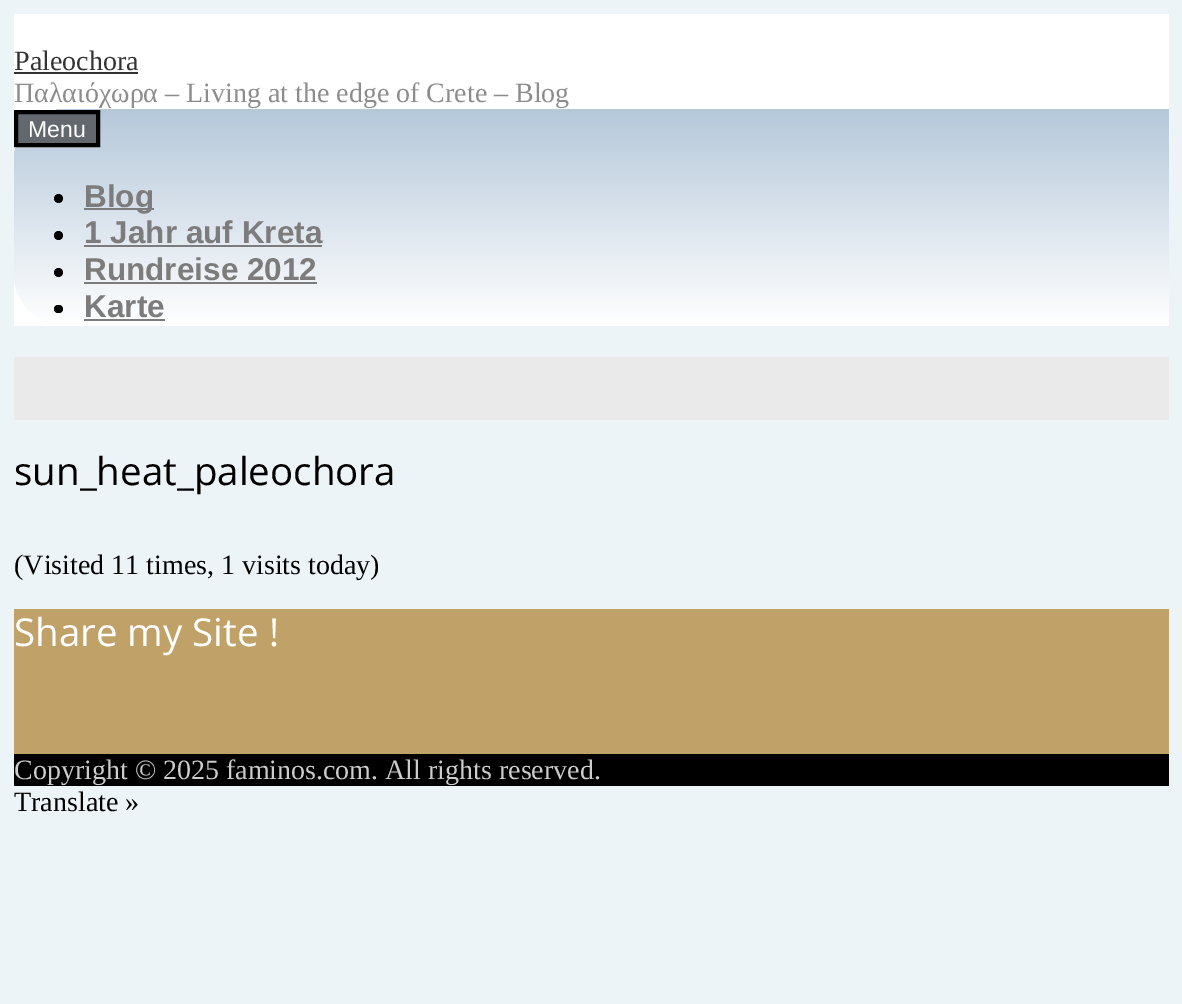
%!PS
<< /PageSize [1182 1004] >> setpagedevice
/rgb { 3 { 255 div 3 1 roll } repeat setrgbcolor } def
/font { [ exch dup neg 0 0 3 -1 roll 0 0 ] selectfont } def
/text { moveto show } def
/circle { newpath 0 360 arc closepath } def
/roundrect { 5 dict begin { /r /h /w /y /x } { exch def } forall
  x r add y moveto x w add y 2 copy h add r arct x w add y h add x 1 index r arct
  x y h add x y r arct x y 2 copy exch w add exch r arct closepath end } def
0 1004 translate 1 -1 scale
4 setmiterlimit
237 244 247 rgb
0 0 1182 1004 rectfill
255 255 255 rgb
14 14 1155 312 rectfill
51 51 51 rgb
14 72 124 2 rectfill
gsave 67 109 moveto 1102 0 rlineto 0 217 rlineto -1102 0 rlineto -29.5 0 -53 -23.5 -53 -53 rcurveto 0 -111 rlineto 0 -29.5 23.5 -53 53 -53 rcurveto closepath clip newpath
<< /ShadingType 2 /ColorSpace /DeviceRGB /Coords [592 108 592 326] /Extend [true true] /Function << /FunctionType 2 /Domain [0 1] /C0 [0.71 0.784 0.855] /C1 [1 1 1] /N 1 >> >> shfill grestore
98 104 110 rgb
16 112 moveto 82 0 rlineto 0 33 rlineto -82 0 rlineto closepath gsave fill grestore
0 0 0 rgb
4 setlinewidth
stroke
58.5 198.5 4.5 circle fill
124 124 124 rgb
84 208 70 2 rectfill
0 0 0 rgb
58.5 235.5 4.5 circle fill
124 124 124 rgb
84 245 238 2 rectfill
0 0 0 rgb
58.5 272.5 4.5 circle fill
124 124 124 rgb
84 282 233 2 rectfill
0 0 0 rgb
54 305 9 8 4 roundrect fill
124 124 124 rgb
84 319 81 2 rectfill
234 234 234 rgb
14 357 1155 63 rectfill
192 162 104 rgb
14 609 1155 145 rectfill
0 0 0 rgb
14 754 1155 32 rectfill
/LiberationSerif-Regular 28 font
51 51 51 rgb
(Paleochora) 14 70 text
140 140 140 rgb
(Παλαιόχωρα – Living at the edge of Crete – Blog) 14 102 text
/LiberationSans-Regular 23 font
255 255 255 rgb
(Menu) 28 137 text
/LiberationSans-Bold 31.5 font
124 124 124 rgb
(Blog) 84 207 text
(1 Jahr auf Kreta) 84 243 text
(Rundreise 2012) 84 280 text
(Karte) 84 317 text
/OpenSans-Regular 38.5 font
0 0 0 rgb
(sun_heat_paleochora) 14 485 text
/LiberationSerif-Regular 28 font
(\(Visited 11 times, 1 visits today\)) 14 574 text
/OpenSans-Regular 38.5 font
255 255 255 rgb
(Share my Site !) 14 646 text
/LiberationSerif-Regular 28 font
204 204 204 rgb
(Copyright © 2025 faminos.com. All rights reserved.) 14 779 text
0 0 0 rgb
(Translate ») 14 811 text
showpage
